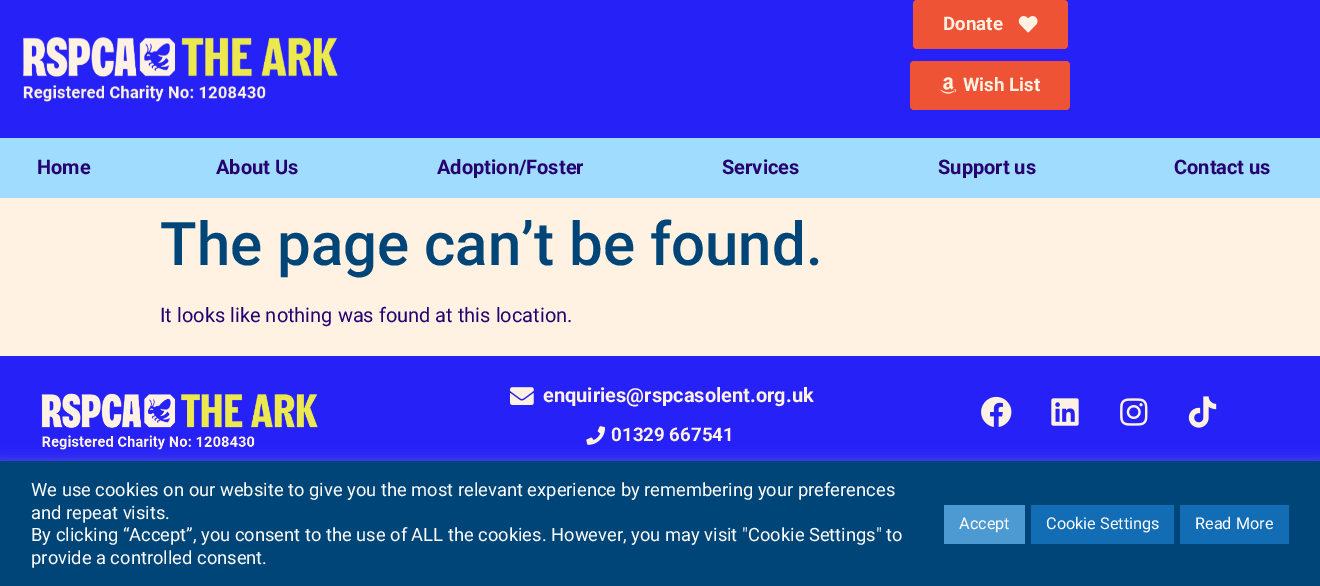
%!PS
<< /PageSize [1320 586] /PageUsesTransparency true >> setpagedevice
/rgb { 3 { 255 div 3 1 roll } repeat setrgbcolor } def
/font { [ exch dup neg 0 0 3 -1 roll 0 0 ] selectfont } def
/text { moveto show } def
/alpha { dup .setfillconstantalpha .setstrokeconstantalpha } def
/roundrect { 5 dict begin { /r /h /w /y /x } { exch def } forall
  x r add y moveto x w add y 2 copy h add r arct x w add y h add x 1 index r arct
  x y h add x y r arct x y 2 copy exch w add exch r arct closepath end } def
/shadow { 12 dict begin { /a /b /q /h /w /y /x } { exch def } forall gsave /was 0 def
  9 -2 -9 { dup b mul 4 div /e exch def 1 sub .425 mul 2.718 exch exp 1 add a .99 .min exch div /now exch def
    1 1 now sub 1 was sub div sub alpha /was now def
    w h .min e 2 mul add 0 gt { x e sub y e sub w e 2 mul add h e 2 mul add
      q e add b .6 mul add w h .min 2 div e add .min 0 .max roundrect fill } if } for grestore end } def
/picture { 5 dict begin { /h /w /y /x /name } { exch def } forall
  gsave x y translate w h scale
  w h 8 [w 0 0 h 0 0] name (r) file false 3 colorimage grestore end } def
0 .pushpdf14devicefilter
0 586 translate 1 -1 scale
4 setmiterlimit
255 242 226 rgb
0 0 1320 586 rectfill
38 34 247 rgb
0 0 1320 138 rectfill
(img_01.rgb) 23 36 315 66 picture
237 83 52 rgb
913 0 155 49 4 roundrect fill
(img_02.rgb) 1018 16 20 17 picture
910 61 160 49 4 roundrect fill
(img_03.rgb) 940 77 17 17 picture
159 220 253 rgb
0 138 1320 60 rectfill
38 34 247 rgb
0 356 1320 105 rectfill
(img_04.rgb) 41 393 277 57 picture
(img_05.rgb) 510 387 24 18 picture
(img_06.rgb) 586 426 19 19 picture
(img_07.rgb) 981 396 31 31 picture
(img_08.rgb) 1051 398 28 28 picture
(img_09.rgb) 1120 398 28 28 picture
(img_10.rgb) 1188 396 29 32 picture
172 171 171 rgb
0 460 1320 125 0 6 0.3 shadow
0 69 119 rgb
0 461 1320 125 rectfill
77 154 211 rgb
944 505 81 39 rectfill
19 109 180 rgb
1031 505 143 39 rectfill
1180 505 109 39 rectfill
/Roboto-Bold 18.75 font
255 242 226 rgb
(Donate) 943 30 text
(Wish List) 963 91 text
/Roboto-Bold 20 font
38 0 113 rgb
(Home) 37 174 text
(About Us) 216 174 text
(Adoption/Foster) 437 174 text
(Services) 722 174 text
(Support us) 938 174 text
(Contact us) 1174 174 text
/Roboto-Medium 60 font
0 69 119 rgb
(The page can’t be found.) 160 265 text
/Roboto-Regular 20 font
38 0 113 rgb
(It looks like nothing was found at this location.) 160 322 text
/Roboto-Bold 20 font
255 242 226 rgb
(enquiries@rspcasolent.org.uk) 543 402 text
/Roboto-Bold 18.75 font
(01329 667541) 611 441 text
/Roboto-Regular 18.35 font
255 255 255 rgb
(We use cookies on our website to give you the most relevant experience by remembering your preferences) 31 496 text
(and repeat visits.) 31 519 text
(By clicking “Accept”, you consent to the use of ALL the cookies. However, you may visit "Cookie Settings" to) 31 541 text
(provide a controlled consent.) 31 564 text
/Roboto-Regular 16.25 font
(Accept) 959 529 text
(Cookie Settings) 1046 529 text
(Read More) 1195 529 text
.poppdf14devicefilter showpage
